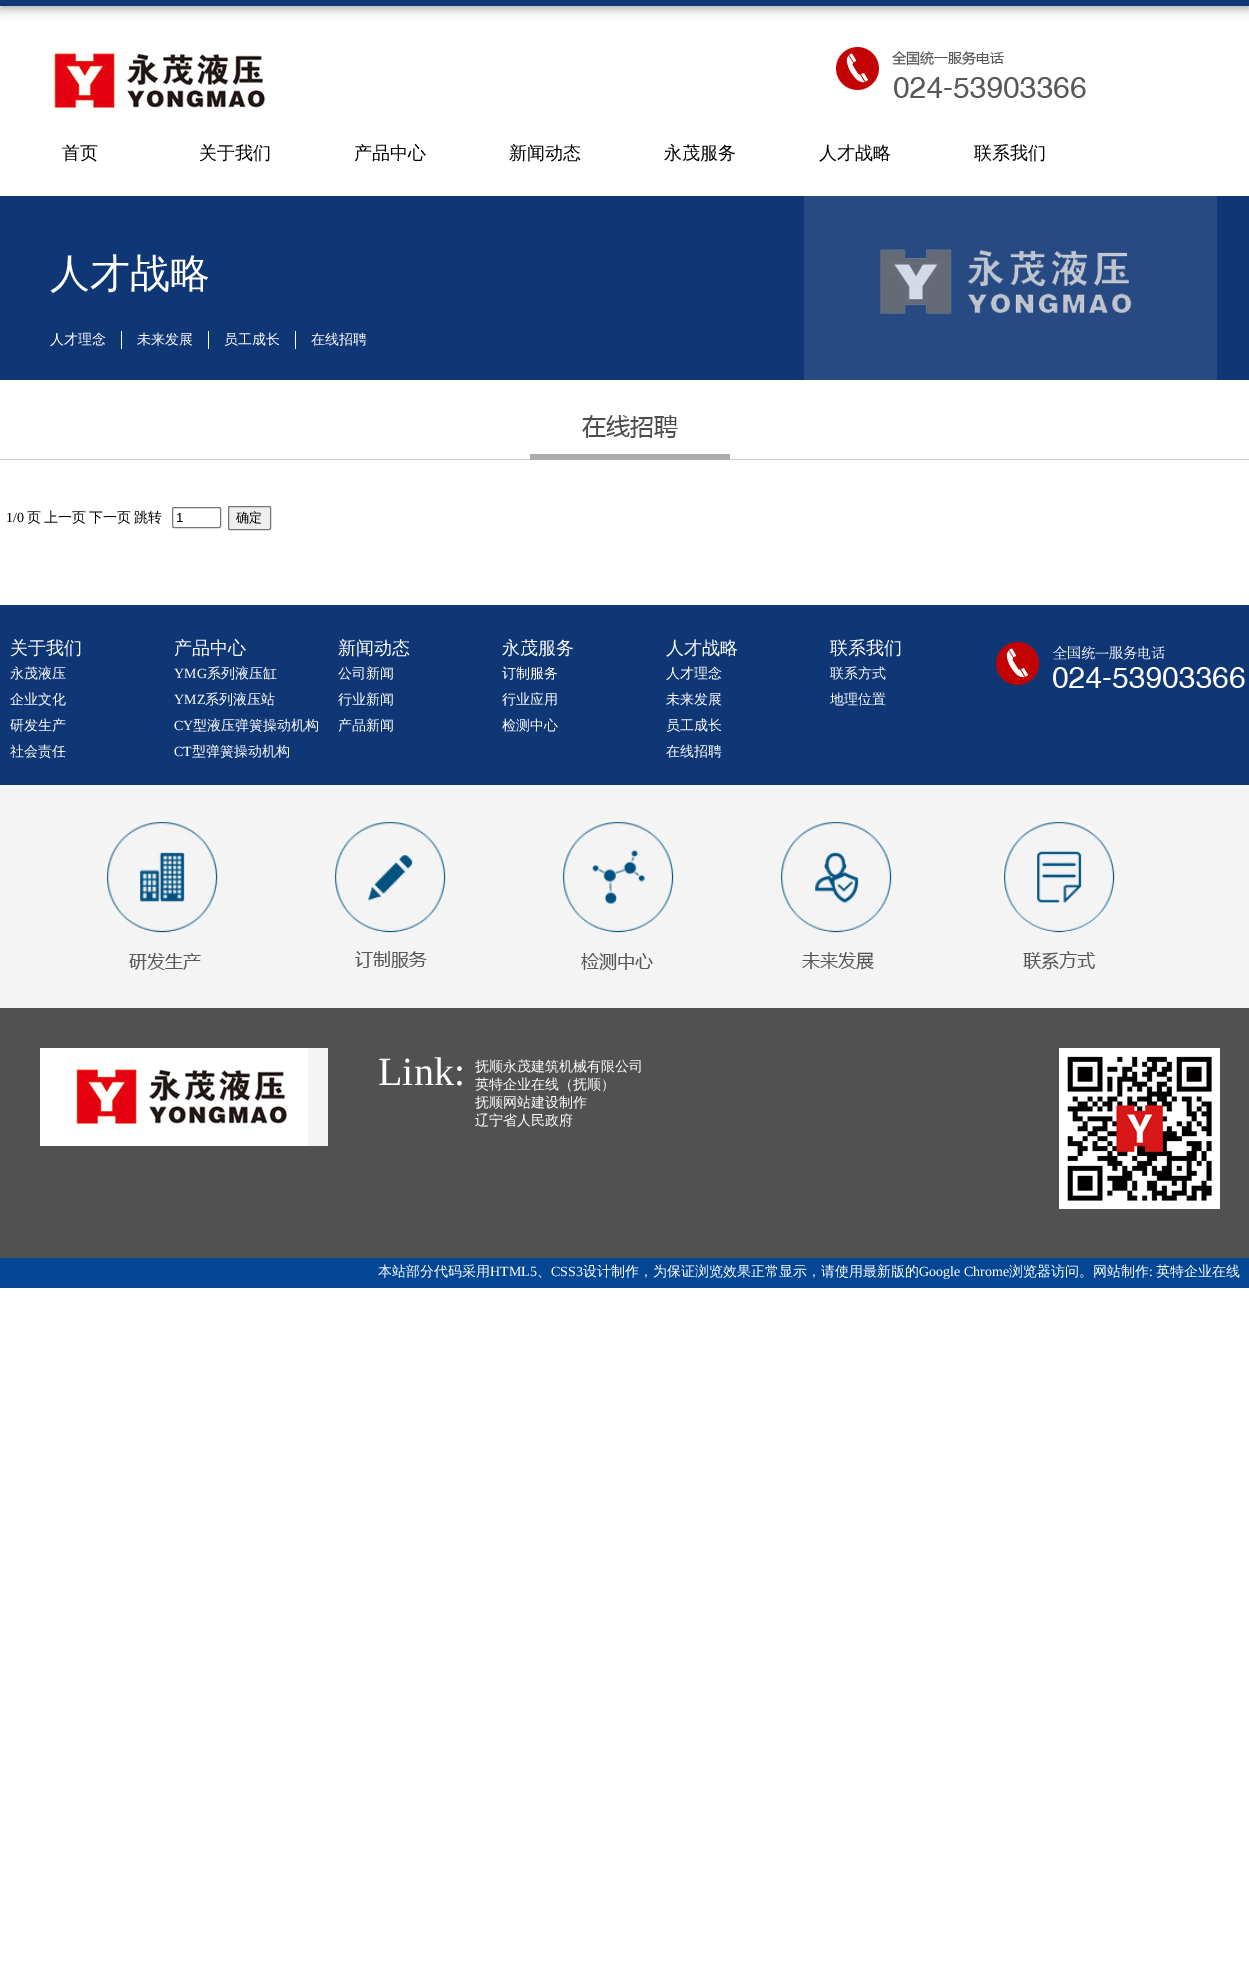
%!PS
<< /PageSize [1249 1980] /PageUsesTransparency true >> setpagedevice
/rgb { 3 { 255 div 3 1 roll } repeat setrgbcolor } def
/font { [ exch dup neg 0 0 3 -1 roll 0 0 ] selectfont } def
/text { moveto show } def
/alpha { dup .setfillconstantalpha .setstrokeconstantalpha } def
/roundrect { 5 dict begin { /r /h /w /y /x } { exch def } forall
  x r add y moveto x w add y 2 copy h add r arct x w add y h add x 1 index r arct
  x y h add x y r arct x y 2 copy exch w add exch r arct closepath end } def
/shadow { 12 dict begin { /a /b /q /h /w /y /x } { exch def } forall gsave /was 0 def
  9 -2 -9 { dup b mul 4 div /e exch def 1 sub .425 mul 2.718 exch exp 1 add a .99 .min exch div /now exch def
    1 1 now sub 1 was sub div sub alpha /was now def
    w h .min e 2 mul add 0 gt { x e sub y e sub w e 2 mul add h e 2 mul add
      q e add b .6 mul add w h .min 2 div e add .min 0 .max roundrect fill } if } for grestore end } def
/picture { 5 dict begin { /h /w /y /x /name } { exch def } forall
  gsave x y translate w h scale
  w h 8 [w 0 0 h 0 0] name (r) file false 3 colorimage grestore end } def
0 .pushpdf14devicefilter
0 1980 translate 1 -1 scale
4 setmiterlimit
255 255 255 rgb
0 0 1249 1980 rectfill
170 170 170 rgb
0 3 1249 6 0 5 1 shadow
15 54 117 rgb
0 0 1249 6 rectfill
(img_01.rgb) 54 47 1032 64 picture
0 196 1249 184 rectfill
255 255 255 rgb
121 331 1 18 rectfill
208 331 1 18 rectfill
295 331 1 18 rectfill
(img_02.rgb) 804 196 413 184 picture
(img_03.rgb) 0 415 1249 45 picture
118 118 118 rgb
172.5 507.5 48 20 1.5 roundrect stroke
239 239 239 rgb
228.5 506.5 42 23 1.5 roundrect gsave fill grestore
118 118 118 rgb
stroke
15 55 117 rgb
0 605 1249 180 rectfill
(img_04.rgb) 996 642 249 48 picture
244 244 244 rgb
0 785 1249 223 rectfill
(img_05.rgb) 129 946 966 24 picture
(img_06.rgb) 106 820 112 113 picture
(img_07.rgb) 334 820 112 113 picture
(img_08.rgb) 562 820 112 113 picture
(img_09.rgb) 780 820 112 113 picture
(img_10.rgb) 1003 820 112 113 picture
81 81 81 rgb
0 1008 1249 250 rectfill
(img_11.rgb) 40 1048 288 98 picture
(img_12.rgb) 1059 1048 161 161 picture
3 70 148 rgb
0 1258 1249 30 rectfill
/WenQuanYiZenHei-Medium 18 font
0 0 0 rgb
(首页) 62 159 text
(关于我们) 199 159 text
(产品中心) 354 159 text
(新闻动态) 509 159 text
(永茂服务) 664 159 text
(人才战略) 819 159 text
(联系我们) 974 159 text
/WenQuanYiZenHei-Medium 40 font
255 255 255 rgb
(人才战略) 50 287 text
/WenQuanYiZenHei-Medium 14 font
(人才理念) 50 344 text
(未来发展) 137 344 text
(员工成长) 224 344 text
(在线招聘) 311 344 text
/LiberationSerif-Regular 14 font
0 0 0 rgb
(1/0) 6 522 text
/WenQuanYiZenHei-Medium 14 font
27 522 moveto -1 0 32 (页 上一页) widthshow
(下一页) 89 522 text
(跳转) 134 522 text
/LiberationSans-Regular 13 font
(1) 176 522 text
/WenQuanYiZenHei-Medium 13 font
(确定) 236 522 text
/WenQuanYiZenHei-Medium 18 font
255 255 255 rgb
(关于我们) 10 654 text
/WenQuanYiZenHei-Medium 14 font
(永茂液压) 10 678 text
(企业文化) 10 704 text
(研发生产) 10 730 text
(社会责任) 10 756 text
/WenQuanYiZenHei-Medium 18 font
(产品中心) 174 654 text
/LiberationSerif-Regular 14 font
(YMG) 174 678 text
/WenQuanYiZenHei-Medium 14 font
(系列液压缸) 207 678 text
/LiberationSerif-Regular 14 font
(YMZ) 174 704 text
/WenQuanYiZenHei-Medium 14 font
(系列液压站) 205 704 text
/LiberationSerif-Regular 14 font
(CY) 174 730 text
/WenQuanYiZenHei-Medium 14 font
(型液压弹簧操动机构) 193 730 text
/LiberationSerif-Regular 14 font
(CT) 174 756 text
/WenQuanYiZenHei-Medium 14 font
(型弹簧操动机构) 192 756 text
/WenQuanYiZenHei-Medium 18 font
(新闻动态) 338 654 text
/WenQuanYiZenHei-Medium 14 font
(公司新闻) 338 678 text
(行业新闻) 338 704 text
(产品新闻) 338 730 text
/WenQuanYiZenHei-Medium 18 font
(永茂服务) 502 654 text
/WenQuanYiZenHei-Medium 14 font
(订制服务) 502 678 text
(行业应用) 502 704 text
(检测中心) 502 730 text
/WenQuanYiZenHei-Medium 18 font
(人才战略) 666 654 text
/WenQuanYiZenHei-Medium 14 font
(人才理念) 666 678 text
(未来发展) 666 704 text
(员工成长) 666 730 text
(在线招聘) 666 756 text
/WenQuanYiZenHei-Medium 18 font
(联系我们) 830 654 text
/WenQuanYiZenHei-Medium 14 font
(联系方式) 830 678 text
(地理位置) 830 704 text
/LiberationSerif-Regular 40 font
(Link:) 378 1085 text
/WenQuanYiZenHei-Medium 14 font
(抚顺永茂建筑机械有限公司) 475 1071 text
(英特企业在线（抚顺）) 475 1089 text
(抚顺网站建设制作) 475 1107 text
(辽宁省人民政府) 475 1125 text
(本站部分代码采用) 378 1276 text
/LiberationSerif-Regular 14 font
(HTML5) 490 1276 text
/WenQuanYiZenHei-Medium 14 font
(、) 537 1276 text
/LiberationSerif-Regular 14 font
(CSS3) 551 1276 text
/WenQuanYiZenHei-Medium 14 font
(设计制作，为保证浏览效果正常显示，请使用最新版的) 583 1276 text
/LiberationSerif-Regular 14 font
(Google Chrome) 919 1276 text
/WenQuanYiZenHei-Medium 14 font
(浏览器访问。网站制作) 1009 1276 text
/LiberationSerif-Regular 14 font
(:) 1149 1276 text
/WenQuanYiZenHei-Medium 14 font
(英特企业在线) 1156 1276 text
.poppdf14devicefilter showpage
